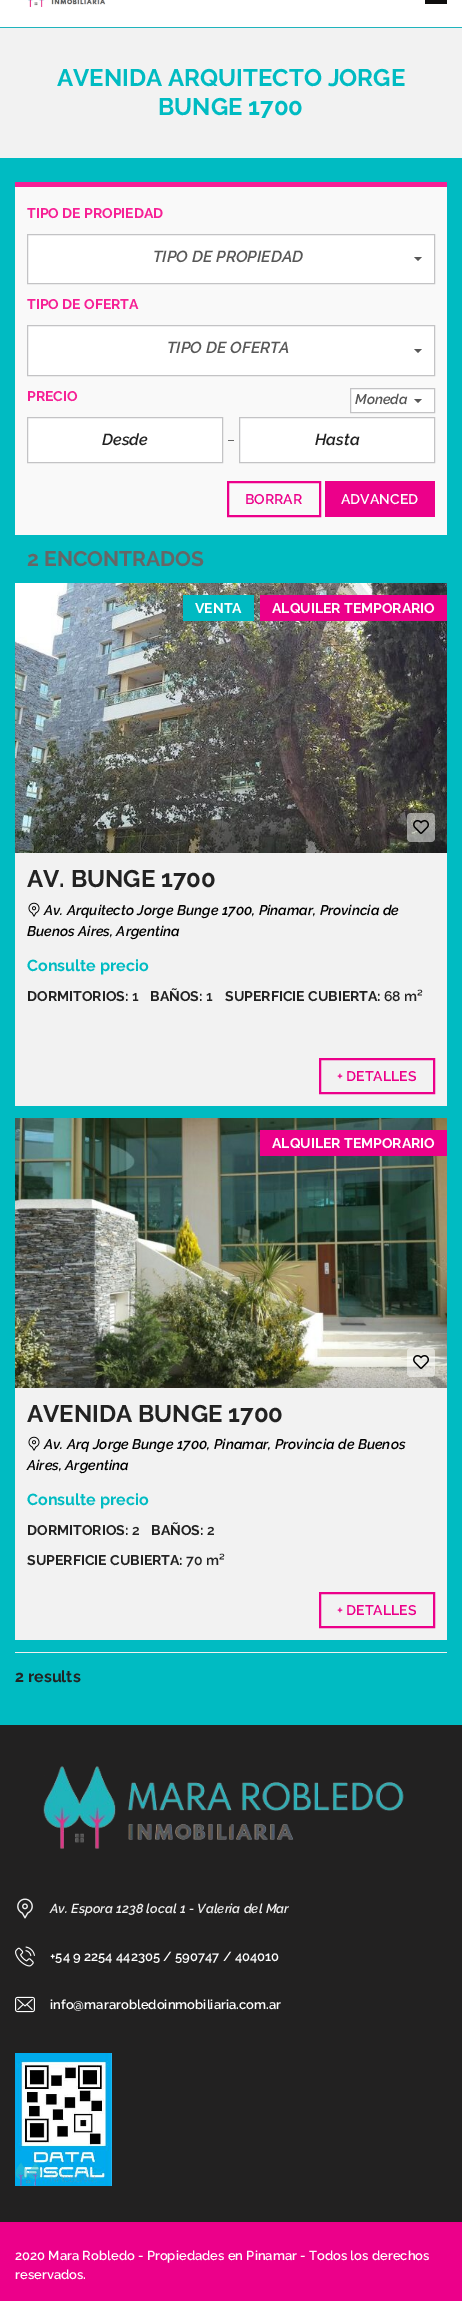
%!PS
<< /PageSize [462 2301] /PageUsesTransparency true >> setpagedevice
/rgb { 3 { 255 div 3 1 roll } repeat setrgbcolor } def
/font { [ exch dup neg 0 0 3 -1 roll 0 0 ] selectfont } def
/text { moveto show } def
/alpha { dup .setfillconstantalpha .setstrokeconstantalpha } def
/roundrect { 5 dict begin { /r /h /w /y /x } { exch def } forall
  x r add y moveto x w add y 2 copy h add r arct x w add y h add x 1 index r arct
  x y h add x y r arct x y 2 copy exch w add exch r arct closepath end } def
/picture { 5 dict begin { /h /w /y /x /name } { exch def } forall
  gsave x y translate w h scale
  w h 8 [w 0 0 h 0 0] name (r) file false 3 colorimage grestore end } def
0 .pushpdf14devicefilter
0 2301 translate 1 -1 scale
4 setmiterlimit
0 187 194 rgb
0 0 462 2301 rectfill
255 255 255 rgb
0 0 462 27 rectfill
32 180 189 rgb
0 27 462 1 rectfill
(img_01.rgb) 28 0 78 7 picture
15 14 14 rgb
425 0 22 4 rectfill
242 242 242 rgb
0 28 462 130 rectfill
249 249 249 rgb
15 187 432 348 rectfill
246 32 149 rgb
15 182 432 5 rectfill
255 255 255 rgb
27.5 234.5 moveto 407 0 rlineto 0 49 rlineto -407 0 rlineto closepath gsave fill grestore
195 195 197 rgb
stroke
87 87 87 rgb
414 257 moveto 8 0 rlineto -4 4 rlineto closepath fill
255 255 255 rgb
27.5 325.5 moveto 407 0 rlineto 0 50 rlineto -407 0 rlineto closepath gsave fill grestore
195 195 197 rgb
stroke
87 87 87 rgb
414 349 moveto 8 0 rlineto -4 4 rlineto closepath fill
255 255 255 rgb
350.5 388.5 moveto 84 0 rlineto 0 24 rlineto -84 0 rlineto closepath gsave fill grestore
195 195 197 rgb
stroke
87 87 87 rgb
414 399 moveto 8 0 rlineto -4 4 rlineto closepath fill
255 255 255 rgb
27.5 417.5 moveto 195 0 rlineto 0 45 rlineto -195 0 rlineto closepath gsave fill grestore
195 195 197 rgb
stroke
102 102 102 rgb
228 440 6 1 rectfill
255 255 255 rgb
239.5 417.5 moveto 195 0 rlineto 0 45 rlineto -195 0 rlineto closepath gsave fill grestore
195 195 197 rgb
stroke
236 0 138 rgb
2 setlinewidth
228 482 92 34 rectstroke
325 481 110 36 rectfill
242 242 242 rgb
15 853 432 253 rectfill
(img_02.rgb) 15 583 432 270 picture
0 186 194 rgb
183 595 71 26 rectfill
236 0 138 rgb
260 595 187 26 rectfill
0.5 alpha
255 255 255 rgb
407 813 28 29 4 roundrect fill
1 alpha
(img_03.rgb) 413 820 16 14 picture
(img_04.rgb) 28 902 12 15 picture
236 0 138 rgb
320 1059 114 34 rectstroke
242 242 242 rgb
15 1388 432 252 rectfill
(img_05.rgb) 15 1118 432 270 picture
236 0 138 rgb
260 1130 187 26 rectfill
0.5 alpha
255 255 255 rgb
407 1348 28 29 4 roundrect fill
1 alpha
(img_06.rgb) 413 1355 16 14 picture
(img_04.rgb) 28 1436 12 15 picture
236 0 138 rgb
320 1593 114 34 rectstroke
240 240 240 rgb
15 1652 432 1 rectfill
34 33 33 rgb
0 1725 462 497 rectfill
(img_07.rgb) 43 1766 361 83 picture
(img_08.rgb) 17 1898 16 21 picture
(img_09.rgb) 15 1946 20 21 picture
(img_10.rgb) 15 1996 20 17 picture
(img_11.rgb) 15 2053 97 133 picture
236 0 138 rgb
0 2222 462 79 rectfill
/Raleway-Bold 24 font
0 187 194 rgb
(AVENIDA ARQUITECTO JORGE) 57 86 text
(BUNGE 1700) 158 115 text
/Raleway-Bold 14 font
246 32 149 rgb
(TIPO DE PROPIEDAD) 27 218 text
/Raleway-ThinItalic 16 font
87 87 87 rgb
(TIPO DE PROPIEDAD) 153 262 text
/Raleway-Bold 14 font
246 32 149 rgb
(TIPO DE OFERTA) 27 309 text
/Raleway-ThinItalic 16 font
87 87 87 rgb
(TIPO DE OFERTA) 167 353 text
/Raleway-Bold 14 font
246 32 149 rgb
(PRECIO) 27 401 text
/Raleway-ThinItalic 14 font
87 87 87 rgb
(Moneda) 355 404 text
/Raleway-ThinItalic 16 font
34 34 34 rgb
(Desde) 102 445 text
(Hasta) 315 445 text
/Raleway-SemiBold 14 font
236 0 138 rgb
(BORRAR) 245 504 text
255 255 255 rgb
(ADVANCED) 341 504 text
/Raleway-Bold 21 font
102 102 102 rgb
(2 ENCONTRADOS) 27 566 text
/Raleway-Bold 14 font
255 255 255 rgb
(VENTA) 195 613 text
(ALQUILER TEMPORARIO) 272 613 text
/Raleway-Bold 24 font
34 34 34 rgb
(AV. BUNGE 1700) 27 887 text
/Raleway-ThinItalic 14 font
0 0 0 rgb
(Av. Arquitecto Jorge Bunge 1700, Pinamar, Provincia de) 44 915 text
(Buenos Aires, Argentina) 27 936 text
/Raleway-Bold 16 font
0 187 194 rgb
(Consulte precio) 27 971 text
/Raleway-Bold 14 font
34 34 34 rgb
(DORMITORIOS:) 27 1001 text
/Raleway-SemiBold 14 font
(1) 132 1001 text
/Raleway-Bold 14 font
(BAÑOS:) 150 1001 text
/Raleway-SemiBold 14 font
(1) 206 1001 text
/Raleway-Bold 14 font
(SUPERFICIE CUBIERTA:) 225 1001 text
/Raleway-SemiBold 14 font
(68 m²) 384 1001 text
236 0 138 rgb
(+ DETALLES) 337 1081 text
/Raleway-Bold 14 font
255 255 255 rgb
(ALQUILER TEMPORARIO) 272 1148 text
/Raleway-Bold 24 font
34 34 34 rgb
(AVENIDA BUNGE 1700) 27 1422 text
/Raleway-ThinItalic 14 font
0 0 0 rgb
(Av. Arq Jorge Bunge 1700, Pinamar, Provincia de Buenos) 44 1449 text
(Aires, Argentina) 27 1470 text
/Raleway-Bold 16 font
0 187 194 rgb
(Consulte precio) 27 1505 text
/Raleway-Bold 14 font
34 34 34 rgb
(DORMITORIOS:) 27 1535 text
/Raleway-SemiBold 14 font
(2) 132 1535 text
/Raleway-Bold 14 font
(BAÑOS:) 151 1535 text
/Raleway-SemiBold 14 font
(2) 207 1535 text
/Raleway-Bold 14 font
(SUPERFICIE CUBIERTA:) 27 1565 text
/Raleway-SemiBold 14 font
(70 m²) 186 1565 text
236 0 138 rgb
(+ DETALLES) 337 1615 text
/Raleway-Bold 16 font
34 34 34 rgb
(2 results) 15 1682 text
/Raleway-ThinItalic 13 font
240 240 240 rgb
(Av. Espora 1238 local 1 - Valeria del Mar) 50 1913 text
/Raleway-SemiBold 13 font
255 255 255 rgb
(+54 9 2254 442305 / 590747 / 404010) 50 1961 text
(info@mararobledoinmobiliaria.com.ar) 50 2009 text
(2020 Mara Robledo - Propiedades en Pinamar - Todos los derechos) 15 2260 text
(reservados.) 15 2279 text
.poppdf14devicefilter showpage
